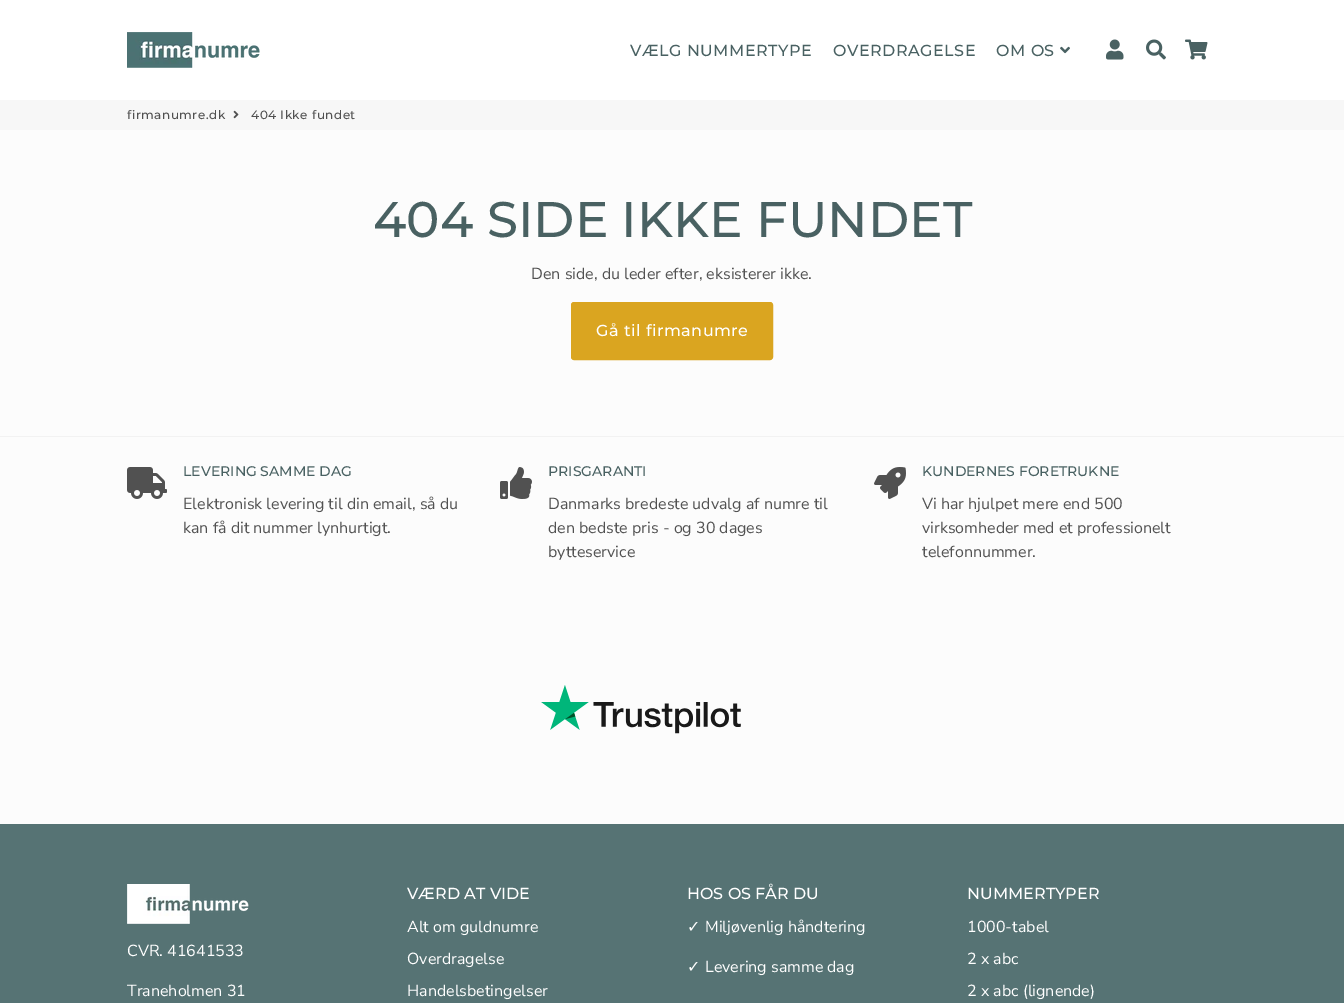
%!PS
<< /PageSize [1344 1003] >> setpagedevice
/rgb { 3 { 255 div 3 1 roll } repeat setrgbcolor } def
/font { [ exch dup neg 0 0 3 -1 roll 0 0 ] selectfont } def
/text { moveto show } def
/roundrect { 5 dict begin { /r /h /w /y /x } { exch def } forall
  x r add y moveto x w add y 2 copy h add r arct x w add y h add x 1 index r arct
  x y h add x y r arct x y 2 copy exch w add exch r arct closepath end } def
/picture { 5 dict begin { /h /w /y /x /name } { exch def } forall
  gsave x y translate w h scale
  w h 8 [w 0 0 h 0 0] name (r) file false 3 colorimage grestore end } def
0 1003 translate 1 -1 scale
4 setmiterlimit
252 252 252 rgb
0 0 1344 1003 rectfill
255 255 255 rgb
0 0 1344 100 rectfill
(img_01.rgb) 127 32 133 36 picture
(img_02.rgb) 1060 46 10 8 picture
(img_03.rgb) 1106 39 18 21 picture
(img_04.rgb) 1146 39 20 21 picture
(img_05.rgb) 1185 39 23 21 picture
247 247 247 rgb
0 100 1344 30 rectfill
(img_06.rgb) 233 110 6 9 picture
218 165 32 rgb
571.5 302.5 201 57 2.5 roundrect gsave fill grestore
stroke
242 242 242 rgb
0 436 1344 1 rectfill
(img_07.rgb) 127 467 40 32 picture
(img_08.rgb) 500 467 32 32 picture
(img_09.rgb) 874 467 32 32 picture
(img_10.rgb) 541 685 200 49 picture
86 115 116 rgb
0 824 1344 179 rectfill
(img_11.rgb) 127 884 122 40 picture
/Montserrat-Medium 16 font
73 97 98 rgb
630 56 moveto 0.5 0 (VÆLG NUMMERTYPE) ashow
833 56 moveto 0.5 0 (OVERDRAGELSE) ashow
996 56 moveto 0.5 0 (OM OS) ashow
/Montserrat-Medium 12 font
81 81 81 rgb
127 119 moveto 0.5 0 (firmanumre.dk) ashow
251 119 moveto 0.5 0 (404 Ikke fundet) ashow
/Montserrat-Medium 50 font
73 97 98 rgb
(404 SIDE IKKE FUNDET) 373 237 text
/NunitoSans-Regular 16 font
81 81 81 rgb
(Den side, du leder efter, eksisterer ikke.) 531 279 text
/Montserrat-Medium 16 font
255 255 255 rgb
596 336 moveto 0.5 0 (Gå til firmanumre) ashow
/Montserrat-Medium 14 font
73 97 98 rgb
(LEVERING SAMME DAG) 183 476 text
/NunitoSans-Regular 16 font
81 81 81 rgb
(Elektronisk levering til din email, så du) 183 509 text
(kan få dit nummer lynhurtigt.) 183 533 text
/Montserrat-Medium 14 font
73 97 98 rgb
(PRISGARANTI) 548 476 text
/NunitoSans-Regular 16 font
81 81 81 rgb
(Danmarks bredeste udvalg af numre til) 548 509 text
(den bedste pris - og 30 dages) 548 533 text
(bytteservice) 548 557 text
/Montserrat-Medium 14 font
73 97 98 rgb
(KUNDERNES FORETRUKNE) 922 476 text
/NunitoSans-Regular 16 font
81 81 81 rgb
(Vi har hjulpet mere end 500) 922 509 text
(virksomheder med et professionelt) 922 533 text
(telefonnummer.) 922 557 text
255 255 255 rgb
(CVR. 41641533) 127 956 text
(Traneholmen 31) 127 996 text
/Montserrat-Medium 16 font
(VÆRD AT VIDE) 407 899 text
/NunitoSans-Regular 16 font
(Alt om guldnumre) 407 932 text
(Overdragelse) 407 964 text
(Handelsbetingelser) 407 996 text
/Montserrat-Medium 16 font
(HOS OS FÅR DU) 687 899 text
/DejaVuSans-Regular 16 font
(✓) 687 932 text
/NunitoSans-Regular 16 font
(Miljøvenlig håndtering) 705 932 text
/DejaVuSans-Regular 16 font
(✓) 687 972 text
/NunitoSans-Regular 16 font
(Levering samme dag) 705 972 text
/Montserrat-Medium 16 font
(NUMMERTYPER) 967 899 text
/NunitoSans-Regular 16 font
(1000-tabel) 967 932 text
(2 x abc) 967 964 text
(2 x abc \(lignende\)) 967 996 text
showpage
